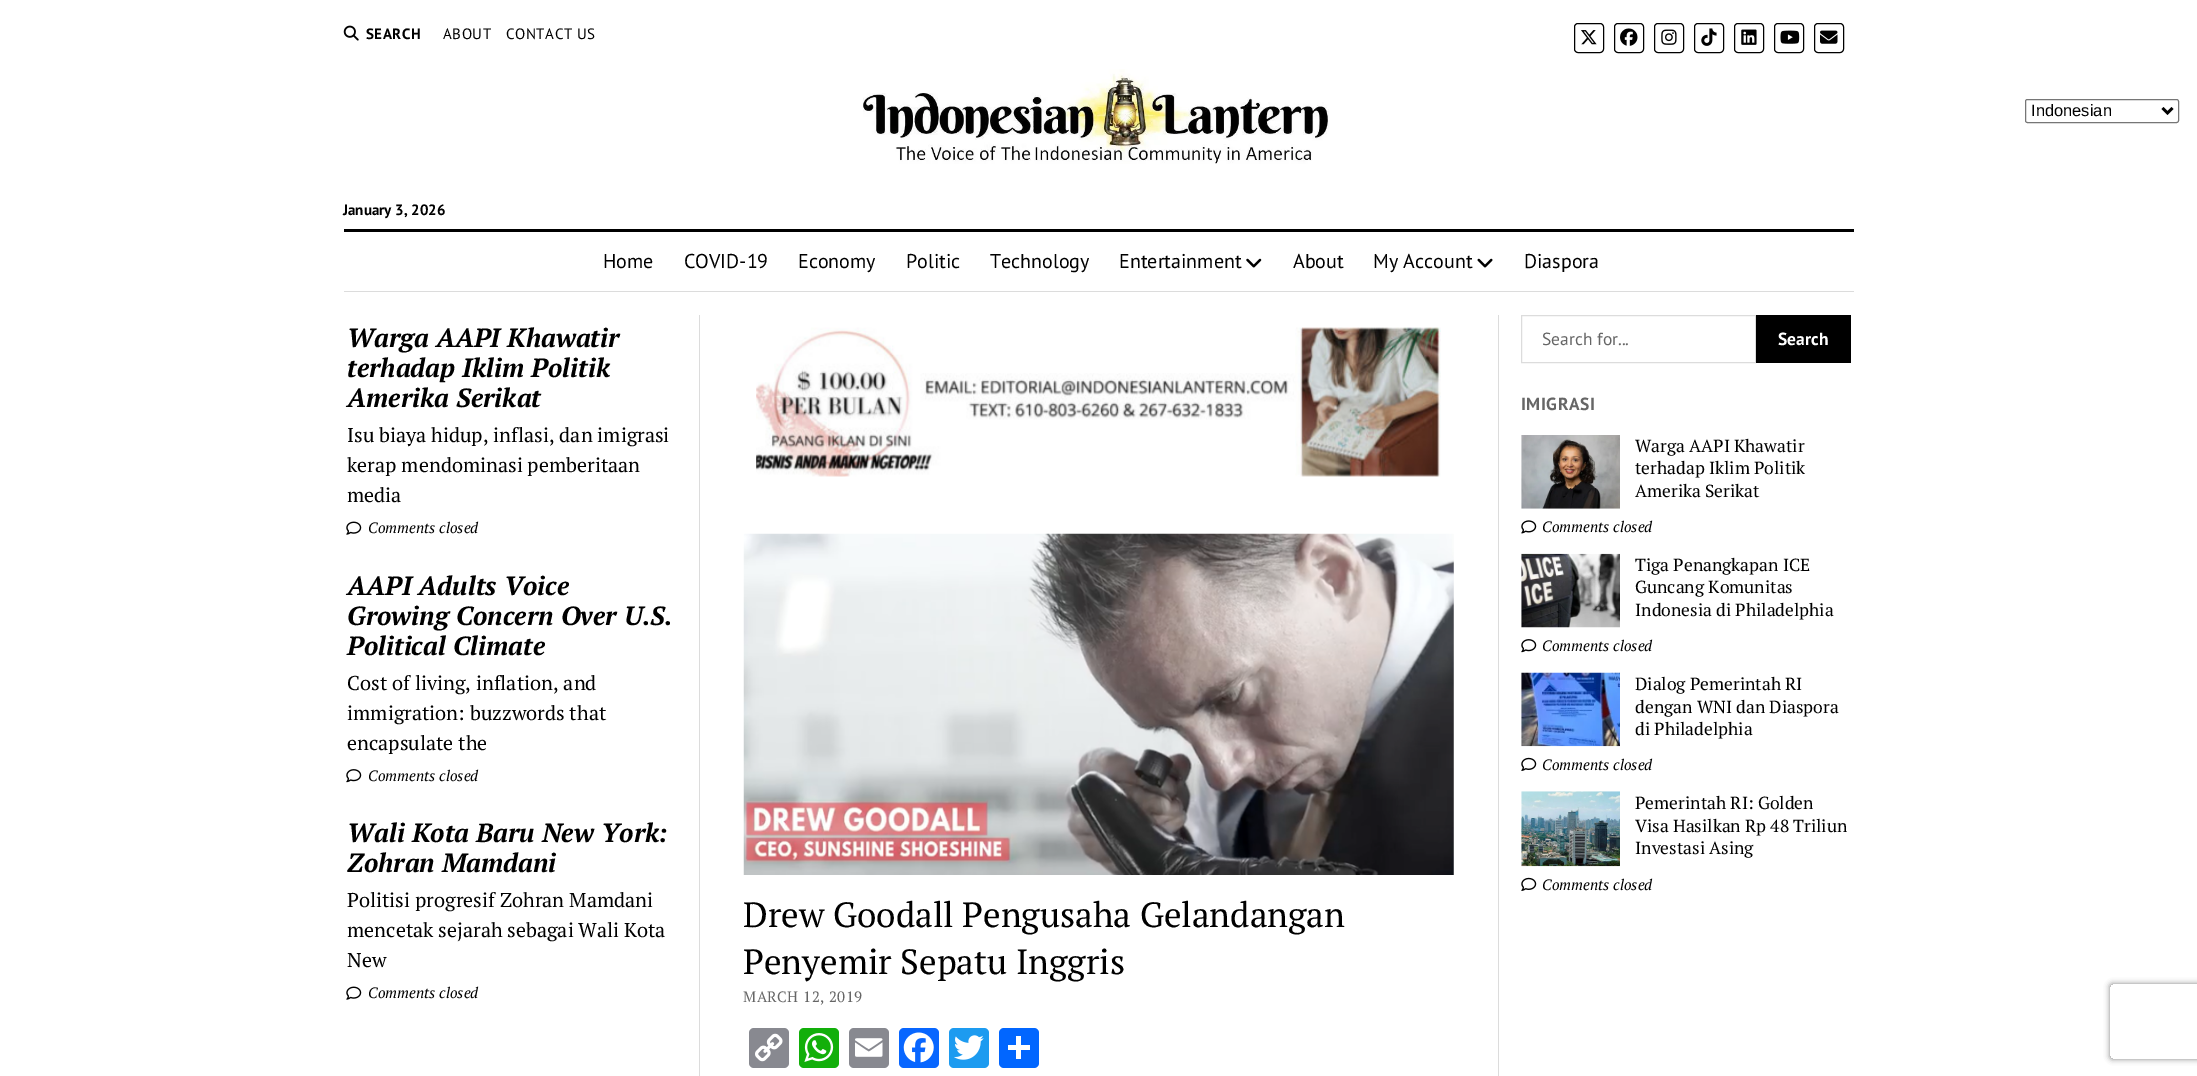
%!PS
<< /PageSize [2197 1076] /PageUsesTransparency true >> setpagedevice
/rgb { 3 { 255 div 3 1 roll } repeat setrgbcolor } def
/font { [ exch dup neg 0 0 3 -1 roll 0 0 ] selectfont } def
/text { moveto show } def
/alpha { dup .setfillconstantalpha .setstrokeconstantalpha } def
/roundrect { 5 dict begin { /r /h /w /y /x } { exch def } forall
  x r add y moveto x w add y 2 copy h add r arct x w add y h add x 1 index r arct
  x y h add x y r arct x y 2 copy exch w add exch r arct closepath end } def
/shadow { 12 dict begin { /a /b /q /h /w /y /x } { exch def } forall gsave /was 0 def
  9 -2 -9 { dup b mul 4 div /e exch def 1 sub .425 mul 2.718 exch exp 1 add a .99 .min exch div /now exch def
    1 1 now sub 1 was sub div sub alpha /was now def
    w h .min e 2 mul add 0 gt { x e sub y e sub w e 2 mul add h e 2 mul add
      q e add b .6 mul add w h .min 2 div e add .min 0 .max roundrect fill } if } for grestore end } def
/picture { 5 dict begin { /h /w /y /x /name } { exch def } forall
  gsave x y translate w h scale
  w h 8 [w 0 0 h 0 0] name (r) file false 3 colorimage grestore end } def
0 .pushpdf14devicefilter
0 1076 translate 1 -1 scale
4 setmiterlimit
255 255 255 rgb
0 0 2197 1076 rectfill
(img_01.rgb) 343 25 16 16 picture
0 0 0 rgb
1574.5 23.5 29 29 3.5 roundrect stroke
(img_02.rgb) 1581 30 16 15 picture
1614.5 23.5 29 29 3.5 roundrect stroke
(img_03.rgb) 1620 28 18 18 picture
1654.5 23.5 29 29 3.5 roundrect stroke
(img_04.rgb) 1661 29 16 16 picture
1694.5 23.5 29 29 3.5 roundrect stroke
(img_05.rgb) 1701 28 16 18 picture
1734.5 23.5 29 29 3.5 roundrect stroke
(img_06.rgb) 1741 29 16 16 picture
1774.5 23.5 29 29 3.5 roundrect stroke
(img_07.rgb) 1780 30 20 14 picture
1814.5 23.5 29 29 3.5 roundrect stroke
(img_08.rgb) 1820 30 18 14 picture
(img_09.rgb) 863 69 466 95 picture
344 229 1510 3 rectfill
220 220 220 rgb
344 291 1510 1 rectfill
(img_10.rgb) 1246 258 16 10 picture
(img_11.rgb) 1477 258 16 10 picture
699 315 1 761 rectfill
1498 315 1 761 rectfill
(img_12.rgb) 346 521 16 14 picture
(img_13.rgb) 346 769 16 14 picture
(img_12.rgb) 346 986 16 14 picture
1521.5 315.5 234 47 rectstroke
0 0 0 rgb
1756 315 95 48 rectfill
(img_14.rgb) 1521 435 99 74 picture
(img_15.rgb) 1521 520 16 14 picture
(img_16.rgb) 1521 553 99 75 picture
(img_13.rgb) 1521 639 16 14 picture
(img_17.rgb) 1521 672 99 75 picture
(img_18.rgb) 1521 757 16 14 picture
(img_19.rgb) 1521 791 99 76 picture
(img_18.rgb) 1521 877 16 14 picture
(img_20.rgb) 756 327 685 150 picture
(img_21.rgb) 743 533 711 342 picture
136 137 144 rgb
749 1028 40 40 5 roundrect fill
(img_22.rgb) 755 1033 28 29 picture
18 175 10 rgb
799 1028 40 40 5 roundrect fill
(img_23.rgb) 804 1033 30 29 picture
136 137 144 rgb
849 1028 40 40 5 roundrect fill
(img_24.rgb) 855 1038 28 19 picture
8 102 255 rgb
899 1028 40 40 5 roundrect fill
(img_25.rgb) 903 1032 31 31 picture
29 155 240 rgb
949 1028 40 40 5 roundrect fill
(img_26.rgb) 954 1035 30 25 picture
1 102 255 rgb
999 1028 40 40 5 roundrect fill
255 255 255 rgb
1016 1036 5 23 rectfill
1008 1045 22 5 rectfill
118 118 118 rgb
2025.5 99.5 153 23 2 roundrect stroke
0 0 0 rgb
2.5 setlinewidth
2162.5 108 moveto 5 5 rlineto 5 -5 rlineto stroke
gsave
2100 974 moveto 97 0 rlineto 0 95 rlineto -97 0 rlineto closepath 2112.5 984 moveto 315 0 rlineto 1.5 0 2.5 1 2.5 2.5 rcurveto 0 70 rlineto 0 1.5 -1 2.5 -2.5 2.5 rcurveto -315 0 rlineto -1.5 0 -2.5 -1 -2.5 -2.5 rcurveto 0 -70 rlineto 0 -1.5 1 -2.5 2.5 -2.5 rcurveto closepath eoclip newpath
128 128 128 rgb
2110 984 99 75 2.5 3 1 shadow
grestore
/PTSans-Bold 15 font
366 39 moveto 0.5 0 (SEARCH) ashow
/PTSans-Regular 15 font
443 39 moveto 0.5 0 (ABOUT) ashow
506 39 moveto 0.5 0 (CONTACT US) ashow
/PTSans-Bold 15 font
(January 3, 2026) 343 215 text
/PTSans-Regular 20 font
(Home) 603 268 text
(COVID-19) 684 268 text
(Economy) 798 268 text
(Politic) 906 268 text
(Technology) 990 268 text
(Entertainment) 1119 268 text
(About) 1293 268 text
(My Account) 1373 268 text
(Diaspora) 1524 268 text
/PTSerif-BoldItalic 26.25 font
(Warga AAPI Khawatir) 347 347 text
(terhadap Iklim Politik) 347 377 text
(Amerika Serikat) 347 407 text
/PTSerif-Regular 20 font
(Isu biaya hidup, inflasi, dan imigrasi) 347 442 text
(kerap mendominasi pemberitaan) 347 472 text
(media) 347 502 text
/PTSerif-Italic 15 font
(Comments closed) 368 533 text
/PTSerif-BoldItalic 26.25 font
(AAPI Adults Voice) 347 595 text
(Growing Concern Over U.S.) 347 625 text
(Political Climate) 347 655 text
/PTSerif-Regular 20 font
(Cost of living, inflation, and) 347 690 text
(immigration: buzzwords that) 347 720 text
(encapsulate the) 347 750 text
/PTSerif-Italic 15 font
(Comments closed) 368 781 text
/PTSerif-BoldItalic 26.25 font
(Wali Kota Baru New York:) 347 842 text
(Zohran Mamdani) 347 872 text
/PTSerif-Regular 20 font
(Politisi progresif Zohran Mamdani) 347 907 text
(mencetak sejarah sebagai Wali Kota) 347 937 text
(New) 347 967 text
/PTSerif-Italic 15 font
(Comments closed) 368 998 text
/PTSans-Regular 17.5 font
102 102 102 rgb
(Search for...) 1542 345 text
/PTSans-Bold 17.5 font
255 255 255 rgb
(Search) 1778 345 text
102 102 102 rgb
1521 410 moveto 0.5 0 (IMIGRASI) ashow
/PTSerif-Regular 17.5 font
0 0 0 rgb
(Warga AAPI Khawatir) 1635 452 text
(terhadap Iklim Politik) 1635 474 text
(Amerika Serikat) 1635 497 text
/PTSerif-Italic 15 font
(Comments closed) 1542 532 text
/PTSerif-Regular 17.5 font
(Tiga Penangkapan ICE) 1635 571 text
(Guncang Komunitas) 1635 593 text
(Indonesia di Philadelphia) 1635 616 text
/PTSerif-Italic 15 font
(Comments closed) 1542 651 text
/PTSerif-Regular 17.5 font
(Dialog Pemerintah RI) 1635 690 text
(dengan WNI dan Diaspora) 1635 713 text
(di Philadelphia) 1635 735 text
/PTSerif-Italic 15 font
(Comments closed) 1542 770 text
/PTSerif-Regular 17.5 font
(Pemerintah RI: Golden) 1635 809 text
(Visa Hasilkan Rp 48 Triliun) 1635 832 text
(Investasi Asing) 1635 854 text
/PTSerif-Italic 15 font
(Comments closed) 1542 890 text
/PTSerif-Regular 35 font
(Drew Goodall Pengusaha Gelandangan) 743 927 text
(Penyemir Sepatu Inggris) 743 974 text
/PTSerif-Regular 15 font
102 102 102 rgb
743 1002 moveto 0.5 0 (MARCH 12, 2019) ashow
/LiberationSans-Regular 16.5 font
0 0 0 rgb
(Indonesian) 2031 116 text
.poppdf14devicefilter showpage
